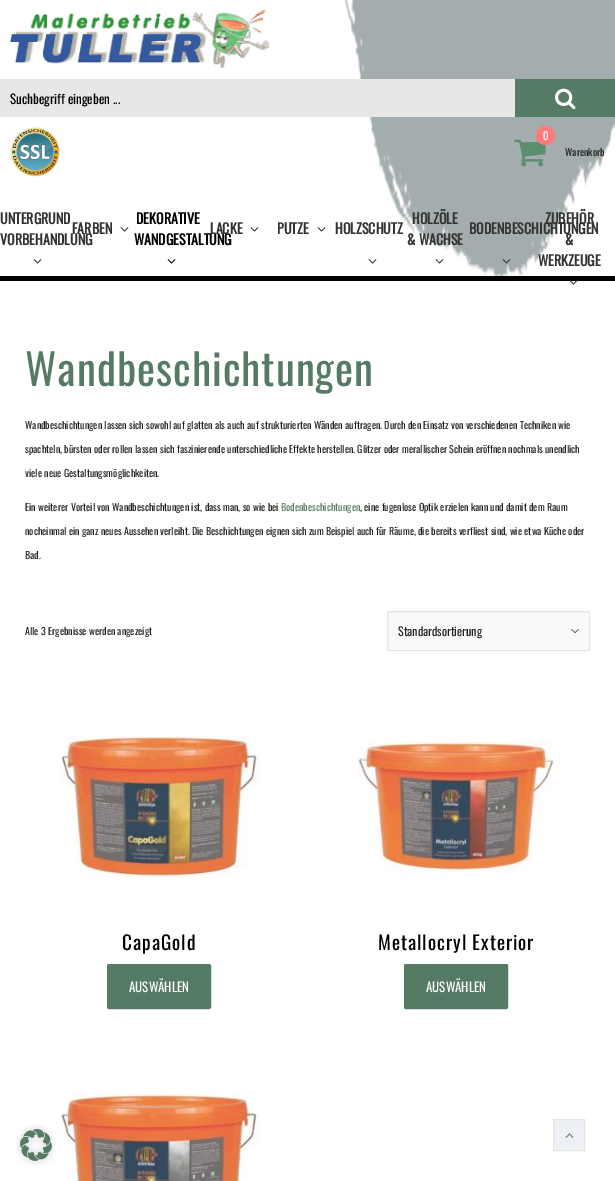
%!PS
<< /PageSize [615 1181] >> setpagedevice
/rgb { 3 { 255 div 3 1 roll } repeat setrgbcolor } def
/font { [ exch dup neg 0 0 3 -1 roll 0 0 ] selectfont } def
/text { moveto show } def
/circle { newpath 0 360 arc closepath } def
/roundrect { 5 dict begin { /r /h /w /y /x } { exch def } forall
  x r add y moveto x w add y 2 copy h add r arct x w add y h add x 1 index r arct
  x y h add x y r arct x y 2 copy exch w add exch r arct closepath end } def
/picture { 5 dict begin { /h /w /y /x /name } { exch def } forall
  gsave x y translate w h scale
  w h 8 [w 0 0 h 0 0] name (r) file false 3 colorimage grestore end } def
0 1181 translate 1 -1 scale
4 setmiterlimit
255 255 255 rgb
0 0 615 1181 rectfill
(img_01.rgb) 345 0 270 276 picture
(img_02.rgb) 10 10 260 59 picture
229 229 228 rgb
0 79 2 38 rectfill
231 231 230 rgb
0 79 550 38 2 roundrect fill
86 123 100 rgb
515 79 100 38 rectfill
(img_03.rgb) 555 88 21 22 picture
(img_04.rgb) 10 127 50 50 picture
(img_05.rgb) 514 139 32 28 picture
255 123 123 rgb
545.5 135.5 9.5 circle fill
0 0 0 rgb
0 276 615 5 rectfill
(img_06.rgb) 33 259 9 5 picture
(img_07.rgb) 167 259 9 5 picture
(img_06.rgb) 435 259 9 5 picture
(img_08.rgb) 569 280 9 5 picture
(img_06.rgb) 120 227 9 5 picture
(img_06.rgb) 250 227 9 5 picture
(img_06.rgb) 317 227 9 5 picture
(img_06.rgb) 368 259 9 5 picture
(img_09.rgb) 502 259 9 5 picture
248 249 251 rgb
387 611 203 40 2 roundrect fill
(img_10.rgb) 571 629 8 4 picture
229 229 227 rgb
387.5 611.5 202 39 1.5 roundrect stroke
(img_11.rgb) 61 735 199 143 picture
86 123 100 rgb
108 965 102 43 1 roundrect gsave fill grestore
2 setlinewidth
stroke
(img_12.rgb) 358 741 196 131 picture
405 965 102 43 1 roundrect gsave fill grestore
stroke
(img_13.rgb) 60 1093 200 88 picture
237 240 245 rgb
553.5 1119.5 moveto 31 0 rlineto 0 31 rlineto -31 0 rlineto closepath gsave fill grestore
229 229 227 rgb
1 setlinewidth
stroke
(img_14.rgb) 565 1133 9 5 picture
(img_15.rgb) 16 1125 40 40 picture
/Oswald-Regular 13 font
0 0 0 rgb
(Suchbegriff eingeben ...) 10 104 text
/Oswald-Regular 11 font
255 255 255 rgb
(0) 543 140 text
/Oswald-Regular 10 font
32 32 30 rgb
(Warenkorb) 565 156 text
/Oswald-Bold 14 font
51 51 51 rgb
(UNTERGRUND) 0 224 text
(VORBEHANDLUNG) 0 245 text
0 0 0 rgb
(DEKORATIVE) 136 224 text
(WANDGESTALTUNG) 134 245 text
51 51 51 rgb
(HOLZÖLE) 412 224 text
(& WACHSE) 407 245 text
(ZUBEHÖR) 545 224 text
(&) 565 245 text
(WERKZEUGE) 538 266 text
(FARBEN) 72 234 text
(LACKE) 210 234 text
(PUTZE) 277 234 text
(HOLZSCHUTZ) 335 234 text
(BODENBESCHICHTUNGEN) 469 234 text
/Oswald-Regular 43 font
85 123 100 rgb
25 386 moveto 1 0 (Wandbeschichtungen) ashow
/Oswald-Regular 10 font
32 32 30 rgb
(Wandbeschichtungen lassen sich sowohl auf glatten als auch auf strukturierten Wänden auftragen. Durch den Einsatz von verschiedenen Techniken wie) 25 429 text
(spachteln, bürsten oder rollen lassen sich faszinierende unterschiedliche Effekte herstellen. Glitzer oder merallischer Schein eröffnen nochmals unendlich) 25 453 text
(viele neue Gestaltungsmöglichkeiten.) 25 477 text
(Ein weiterer Vorteil von Wandbeschichtungen ist, dass man, so wie bei) 25 511 text
85 123 100 rgb
(Bodenbeschichtungen) 281 511 text
32 32 30 rgb
(, eine fugenlose Optik erzielen kann und damit dem Raum) 360 511 text
(nocheinmal ein ganz neues Aussehen verleiht. Die Beschichtungen eignen sich zum Beispiel auch für Räume, die bereits verfliest sind, wie etwa Küche oder) 25 535 text
(Bad.) 25 559 text
(Alle 3 Ergebnisse werden angezeigt) 25 635 text
/Oswald-Regular 12 font
(Standardsortierung) 398 636 text
/Oswald-Regular 19.25 font
0 0 0 rgb
122 950 moveto 1 0 (CapaGold) ashow
/Oswald-Regular 13 font
255 255 255 rgb
(AUSWÄHLEN) 129 992 text
/Oswald-Regular 19.25 font
0 0 0 rgb
378 950 moveto 1 0 (Metallocryl Exterior) ashow
/Oswald-Regular 13 font
255 255 255 rgb
(AUSWÄHLEN) 426 992 text
showpage
